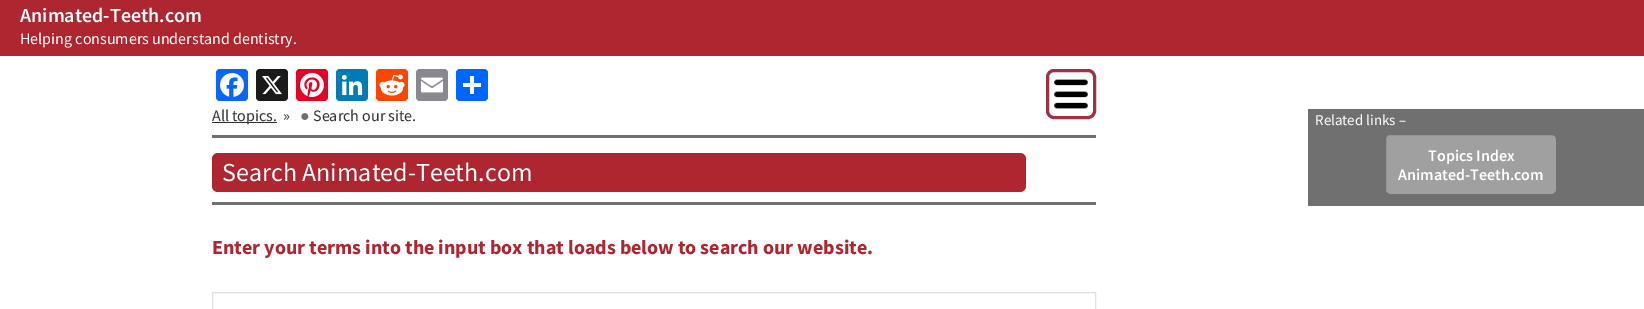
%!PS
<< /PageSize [1644 309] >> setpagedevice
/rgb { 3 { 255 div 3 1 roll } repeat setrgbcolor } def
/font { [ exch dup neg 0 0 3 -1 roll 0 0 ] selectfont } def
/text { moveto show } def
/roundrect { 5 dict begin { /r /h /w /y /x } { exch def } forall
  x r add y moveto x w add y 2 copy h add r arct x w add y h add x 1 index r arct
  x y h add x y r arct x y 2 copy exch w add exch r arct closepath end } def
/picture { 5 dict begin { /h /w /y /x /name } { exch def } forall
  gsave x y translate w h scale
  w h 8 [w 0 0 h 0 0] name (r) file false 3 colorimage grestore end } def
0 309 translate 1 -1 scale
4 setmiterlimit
255 255 255 rgb
0 0 1644 309 rectfill
174 38 48 rgb
0 0 1644 56 rectfill
8 102 255 rgb
216 69 32 32 4 roundrect fill
(img_01.rgb) 220 73 24 24 picture
26 26 26 rgb
256 69 32 32 4 roundrect fill
(img_02.rgb) 262 76 20 19 picture
230 0 35 rgb
296 69 32 32 4 roundrect fill
(img_03.rgb) 300 73 24 24 picture
0 123 181 rgb
336 69 32 32 4 roundrect fill
(img_04.rgb) 341 74 22 22 picture
255 69 0 rgb
376 69 32 32 4 roundrect fill
(img_05.rgb) 379 74 26 22 picture
136 137 144 rgb
416 69 32 32 4 roundrect fill
(img_06.rgb) 421 77 22 16 picture
1 102 255 rgb
456 69 32 32 4 roundrect fill
255 255 255 rgb
470 76 4 18 rectfill
463 83 18 4 rectfill
51 51 51 rgb
212 122 65 1 rectfill
160 50 72 rgb
3 setlinewidth
1047.5 70.5 47 47 6.5 roundrect stroke
(img_07.rgb) 1054 79 34 30 picture
112 112 112 rgb
1308 109 336 97 rectfill
160 160 160 rgb
1385.5 134.5 171 60 4.5 roundrect gsave fill grestore
112 112 113 rgb
1 setlinewidth
stroke
112 112 112 rgb
212 135 884 3 rectfill
212 202 884 3 rectfill
174 38 48 rgb
212 153 814 39 6 roundrect fill
218 224 229 rgb
212.5 292.5 883 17 rectstroke
/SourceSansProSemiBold-SemiBold 20 font
255 255 255 rgb
(Animated-Teeth.com) 20 22 text
/SourceSansPro-Regular 16 font
(Helping consumers understand dentistry.) 20 44 text
51 51 51 rgb
(All topics.) 212 121 text
(») 283 121 text
/LiberationSans-Regular 16 font
112 112 113 rgb
(●) 300 121 text
/SourceSansPro-Regular 16 font
51 51 51 rgb
(Search our site.) 313 121 text
/SourceSansPro-Regular 15 font
255 255 255 rgb
(Related links –) 1315 125 text
/SourceSansProSemiBold-SemiBold 16 font
(Topics Index) 1428 161 text
(Animated-Teeth.com) 1398 180 text
/SourceSansPro-Regular 26 font
(Search Animated-Teeth.com) 222 181 text
/SourceSansPro-Bold 20 font
174 38 48 rgb
(Enter your terms into the input box that loads below to search our website.) 212 254 text
showpage
